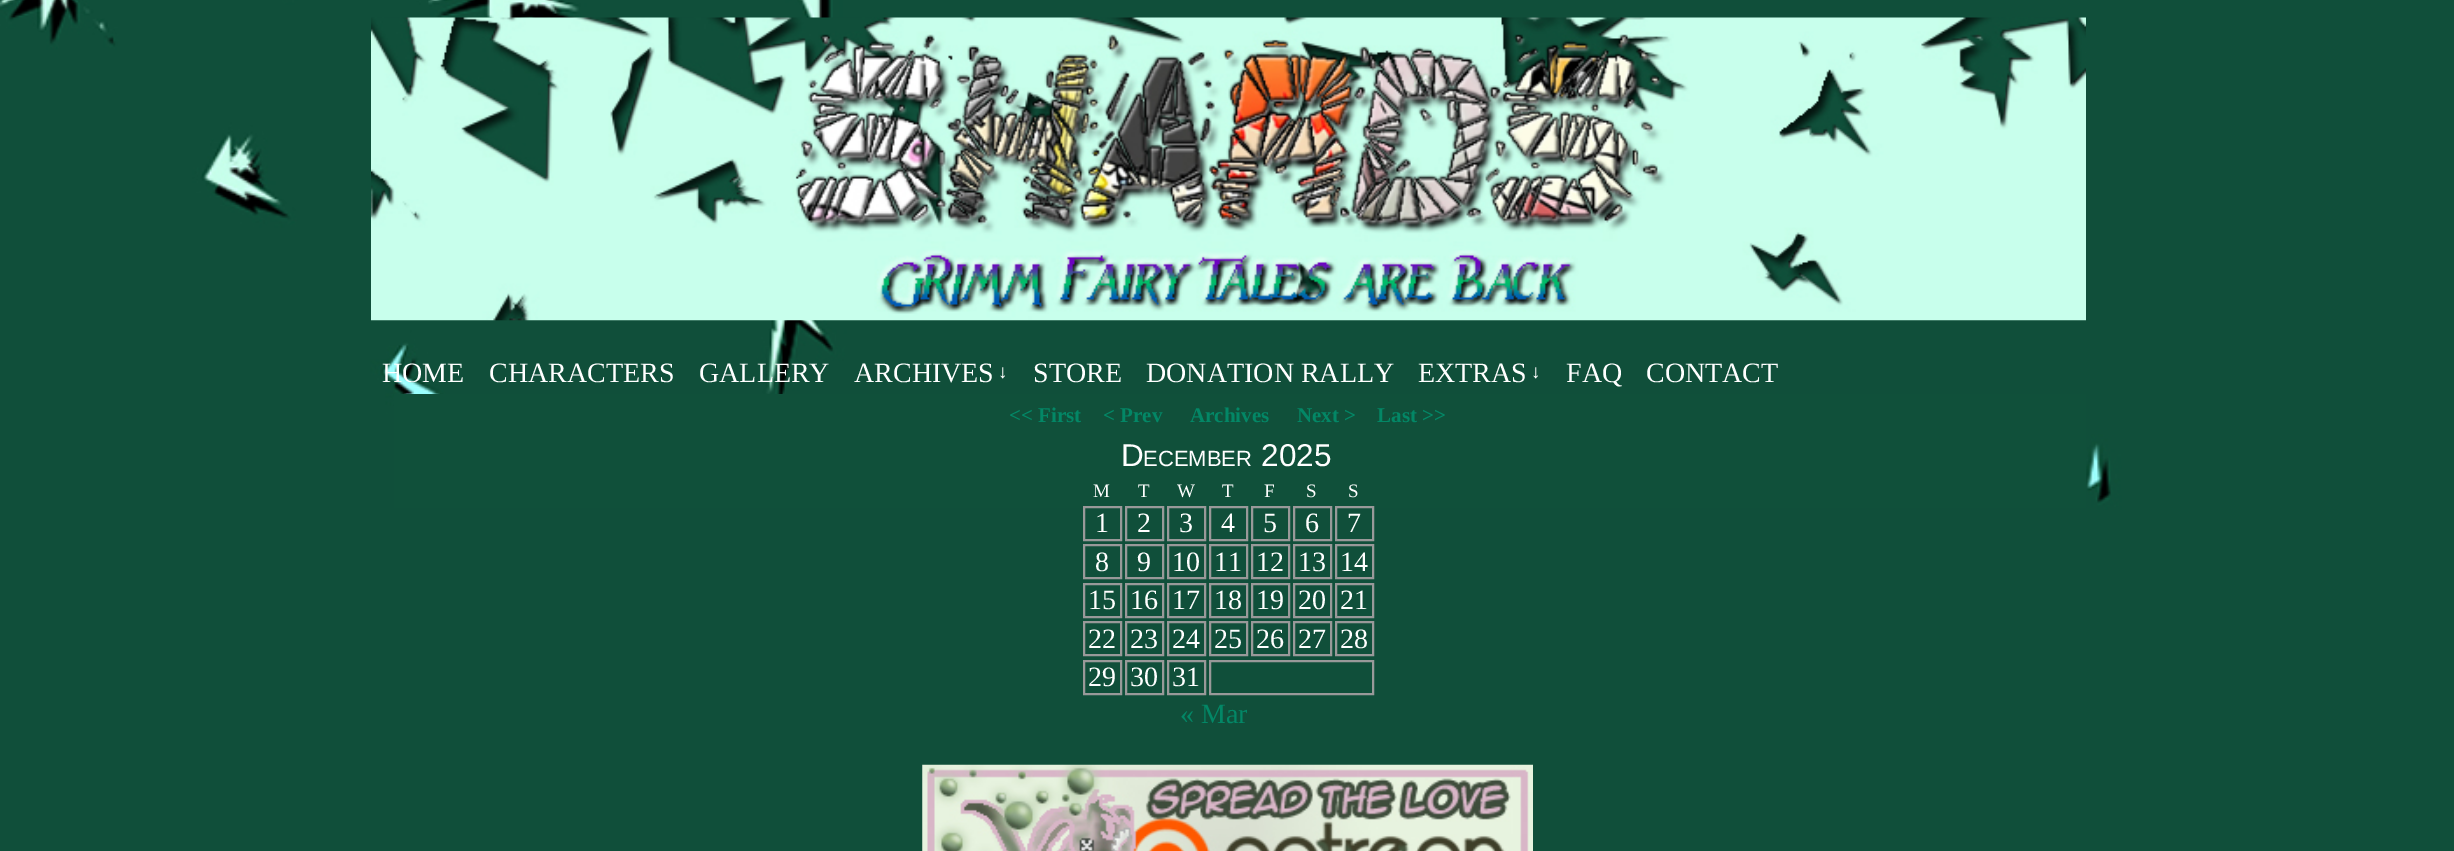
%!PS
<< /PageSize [2454 851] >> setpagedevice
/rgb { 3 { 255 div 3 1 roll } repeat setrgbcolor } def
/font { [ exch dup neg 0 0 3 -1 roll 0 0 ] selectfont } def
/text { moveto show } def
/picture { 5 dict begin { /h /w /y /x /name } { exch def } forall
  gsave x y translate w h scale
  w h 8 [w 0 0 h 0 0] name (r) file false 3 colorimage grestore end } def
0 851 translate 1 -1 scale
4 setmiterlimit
255 255 255 rgb
0 0 2454 851 rectfill
(img_01.rgb) 0 0 2454 851 picture
(img_02.rgb) 371 17 1715 304 picture
16 80 58 rgb
394 394 1692 114 rectfill
153 153 153 rgb
2 setlinewidth
1084 507 37 33 rectstroke
1126 507 37 33 rectstroke
1168 507 37 33 rectstroke
1210 507 37 33 rectstroke
1252 507 37 33 rectstroke
1294 507 37 33 rectstroke
1336 507 37 33 rectstroke
1084 545 37 33 rectstroke
1126 545 37 33 rectstroke
1168 545 37 33 rectstroke
1210 545 37 33 rectstroke
1252 545 37 33 rectstroke
1294 545 37 33 rectstroke
1336 545 37 33 rectstroke
1084 584 37 33 rectstroke
1126 584 37 33 rectstroke
1168 584 37 33 rectstroke
1210 584 37 33 rectstroke
1252 584 37 33 rectstroke
1294 584 37 33 rectstroke
1336 584 37 33 rectstroke
1084 622 37 33 rectstroke
1126 622 37 33 rectstroke
1168 622 37 33 rectstroke
1210 622 37 33 rectstroke
1252 622 37 33 rectstroke
1294 622 37 33 rectstroke
1336 622 37 33 rectstroke
1084 661 37 33 rectstroke
1126 661 37 33 rectstroke
1168 661 37 33 rectstroke
1210 661 163 33 rectstroke
(img_03.rgb) 922 764 611 87 picture
/LiberationSerif-Regular 28 font
255 255 255 rgb
(HOME) 382 382 text
(CHARACTERS) 489 382 text
(GALLERY) 699 382 text
(ARCHIVES) 854 382 text
/LiberationSerif-Regular 19 font
(↓) 998 378 text
/LiberationSerif-Regular 28 font
(STORE) 1033 382 text
(DONATION RALLY) 1146 382 text
(EXTRAS) 1418 382 text
/LiberationSerif-Regular 19 font
(↓) 1531 378 text
/LiberationSerif-Regular 28 font
(FAQ) 1566 382 text
(CONTACT) 1646 382 text
/LiberationSerif-Bold 21 font
3 135 102 rgb
(<< First) 1009 422 text
(< Prev) 1103 422 text
(Archives) 1190 422 text
(Next >) 1297 422 text
(Last >>) 1377 422 text
/LiberationSans-Regular 31.5 font
255 255 255 rgb
(D) 1121 466 text
/LiberationSans-Regular 22 font
(ECEMBER) 1143 466 text
/LiberationSans-Regular 31.5 font
(2025) 1261 466 text
/LiberationSerif-Regular 19 font
(M) 1093 497 text
(T) 1138 497 text
(W) 1177 497 text
(T) 1222 497 text
(F) 1264 497 text
(S) 1306 497 text
(S) 1348 497 text
/LiberationSerif-Regular 28 font
(1) 1095 532 text
(2) 1137 532 text
(3) 1179 532 text
(4) 1221 532 text
(5) 1263 532 text
(6) 1305 532 text
(7) 1347 532 text
(8) 1095 571 text
(9) 1137 571 text
(10) 1172 571 text
(11) 1214 571 text
(12) 1256 571 text
(13) 1298 571 text
(14) 1340 571 text
(15) 1088 609 text
(16) 1130 609 text
(17) 1172 609 text
(18) 1214 609 text
(19) 1256 609 text
(20) 1298 609 text
(21) 1340 609 text
(22) 1088 648 text
(23) 1130 648 text
(24) 1172 648 text
(25) 1214 648 text
(26) 1256 648 text
(27) 1298 648 text
(28) 1340 648 text
(29) 1088 686 text
(30) 1130 686 text
(31) 1172 686 text
3 135 102 rgb
(« Mar) 1180 723 text
showpage
